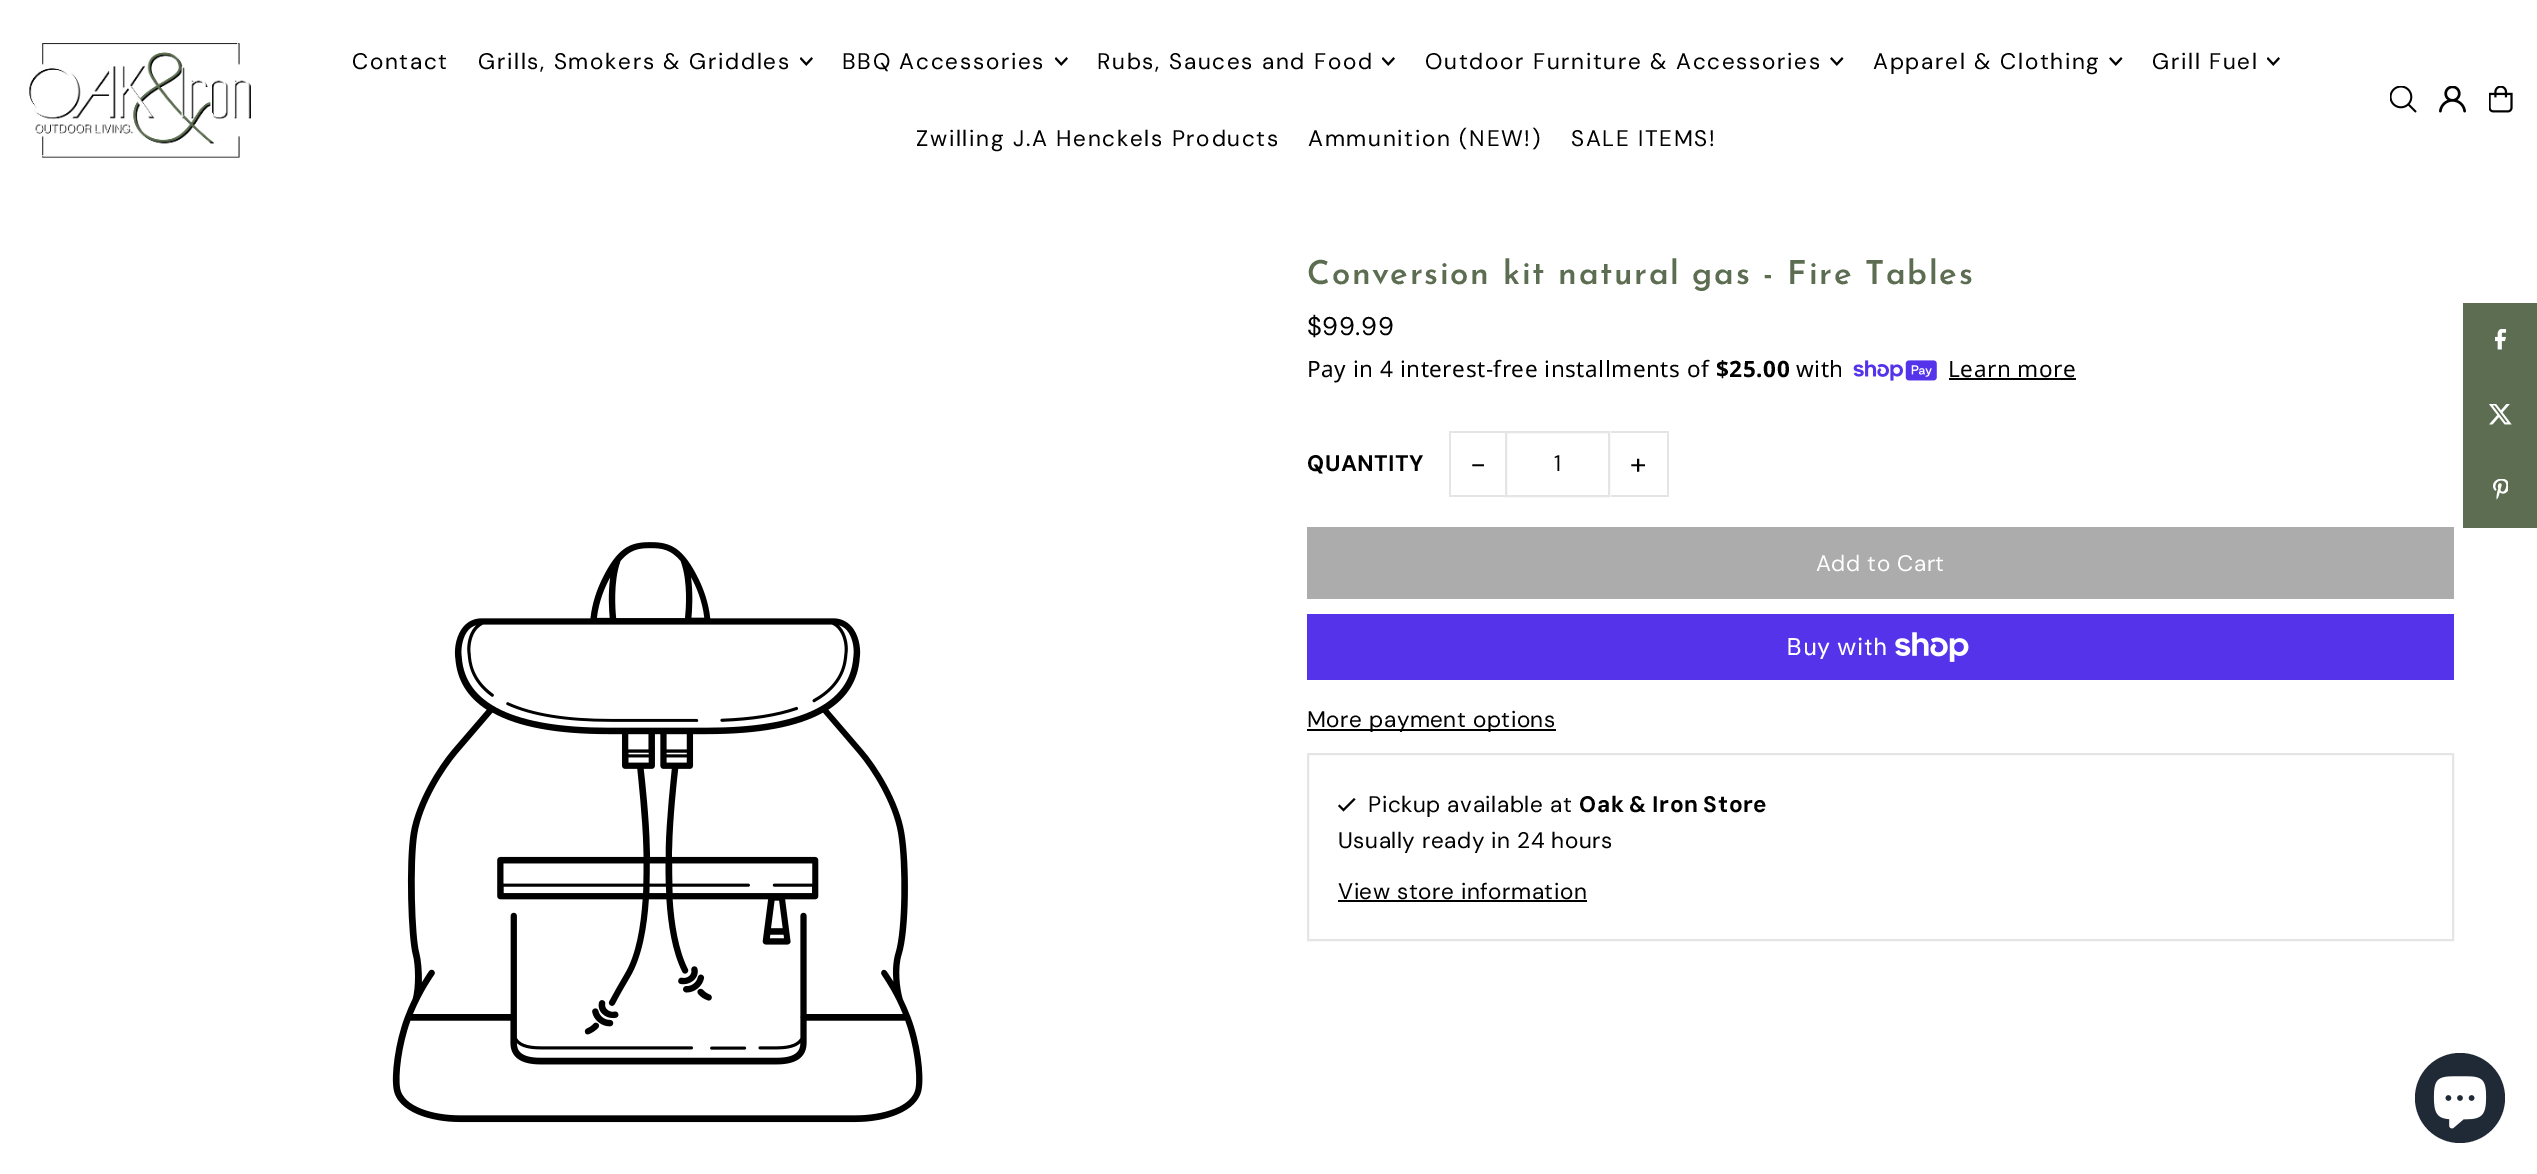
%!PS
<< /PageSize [2537 1174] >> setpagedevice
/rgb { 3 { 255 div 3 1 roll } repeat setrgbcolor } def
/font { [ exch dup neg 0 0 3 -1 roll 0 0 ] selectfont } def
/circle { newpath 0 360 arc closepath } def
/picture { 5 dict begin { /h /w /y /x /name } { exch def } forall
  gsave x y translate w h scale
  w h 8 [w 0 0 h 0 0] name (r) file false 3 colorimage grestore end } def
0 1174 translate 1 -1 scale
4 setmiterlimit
255 255 255 rgb
0 0 2537 1174 rectfill
(img_01.rgb) 29 43 222 115 picture
(img_02.rgb) 800 57 13 9 picture
(img_02.rgb) 1055 57 13 9 picture
(img_02.rgb) 1382 57 13 9 picture
(img_03.rgb) 1830 57 14 9 picture
(img_03.rgb) 2109 57 14 9 picture
(img_02.rgb) 2267 57 13 9 picture
(img_04.rgb) 2390 86 27 27 picture
(img_05.rgb) 2439 86 27 27 picture
(img_06.rgb) 2489 86 24 27 picture
(img_07.rgb) 392 542 531 581 picture
(img_08.rgb) 1853 360 84 21 picture
0 0 0 rgb
1949 378 127 2 rectfill
229 229 229 rgb
1449 431 57 2 rectfill
1449 495 57 2 rectfill
1449 431 2 66 rectfill
2 setlinewidth
1506 432 103 64 rectstroke
1611 431 57 2 rectfill
1667 431 2 66 rectfill
1611 495 57 2 rectfill
172 172 172 rgb
1307 527 1147 72 rectfill
84 51 235 rgb
1307 614 1147 66 rectfill
(img_09.rgb) 1895 632 74 30 picture
0 0 0 rgb
1307 729 249 2 rectfill
229 229 229 rgb
1308 754 1145 186 rectstroke
0 0 0 rgb
1343.5 808.5 moveto -4 -4 rlineto -1.5 1.5 rlineto 5.5 5.5 rlineto 12 -12 rlineto -1.5 -1.5 rlineto closepath fill
1338 900 249 2 rectfill
92 109 81 rgb
2463 303 74 225 rectfill
(img_10.rgb) 2495 329 12 21 picture
(img_11.rgb) 2489 404 23 21 picture
(img_12.rgb) 2493 479 15 21 picture
32 42 54 rgb
2460 1098 45 circle fill
(img_13.rgb) 2433 1076 54 53 picture
/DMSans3-Regular 22.5 font
0 0 0 rgb
352 69 moveto 1.7 0 (Contact) ashow
478 69 moveto 1.7 0 (Grills, Smokers & Griddles) ashow
842 69 moveto 1.7 0 (BBQ Accessories) ashow
1097 69 moveto 1.7 0 (Rubs, Sauces and Food) ashow
1425 69 moveto 1.7 0 (Outdoor Furniture & Accessories) ashow
1873 69 moveto 1.7 0 (Apparel & Clothing) ashow
2152 69 moveto 1.7 0 (Grill Fuel) ashow
916 146 moveto 1.7 0 (Zwilling J.A Henckels Products) ashow
1308 146 moveto 1.7 0 (Ammunition \(NEW!\)) ashow
1571 146 moveto 1.7 0 (SALE ITEMS!) ashow
/JosefinSans-SemiBold 33 font
92 109 81 rgb
1307 284 moveto 1.65 0 (Conversion kit natural gas - Fire Tables) ashow
/DMSans-Regular 25.5 font
0 0 0 rgb
1307 335 moveto 0.55 0 ($99.99) ashow
/NotoSans-Regular 22.5 font
1307 377 moveto 0.55 0 (Pay in 4 interest-free installments of) ashow
/NotoSans-Bold 22.5 font
1716 377 moveto 0.55 0 ($25.00) ashow
/NotoSans-Regular 22.5 font
1796 377 moveto 0.55 0 (with) ashow
1948 377 moveto 0.55 0 (Learn more) ashow
/DMSans-Bold 22.5 font
1307 471 moveto 0.55 0 (QUANTITY) ashow
/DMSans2-Regular 30 font
1470 474 moveto 1 0 (-) ashow
/DMSans3-Regular 22.5 font
1554 471 moveto 0.55 0 (1) ashow
/DMSans-Regular 30 font
1630 474 moveto 1 0 (+) ashow
/DMSans3-Regular 22.5 font
255 255 255 rgb
1816 571 moveto 0.55 0 (Add to Cart) ashow
/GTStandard-Regular 24 font
1786 655 moveto 0.55 0 (Buy with) ashow
/DMSans3-Regular 22.5 font
0 0 0 rgb
1307 727 moveto 0.55 0 (More payment options) ashow
1368 812 moveto 0.55 0 (Pickup available at) ashow
/DMSans-Bold 22.5 font
1579 812 moveto -1 0 32 0.55 0 (Oak & Iron Store) awidthshow
/DMSans3-Regular 22.5 font
1338 848 moveto 0.55 0 (Usually ready in 24 hours) ashow
1338 899 moveto 0.55 0 (View store information) ashow
showpage
